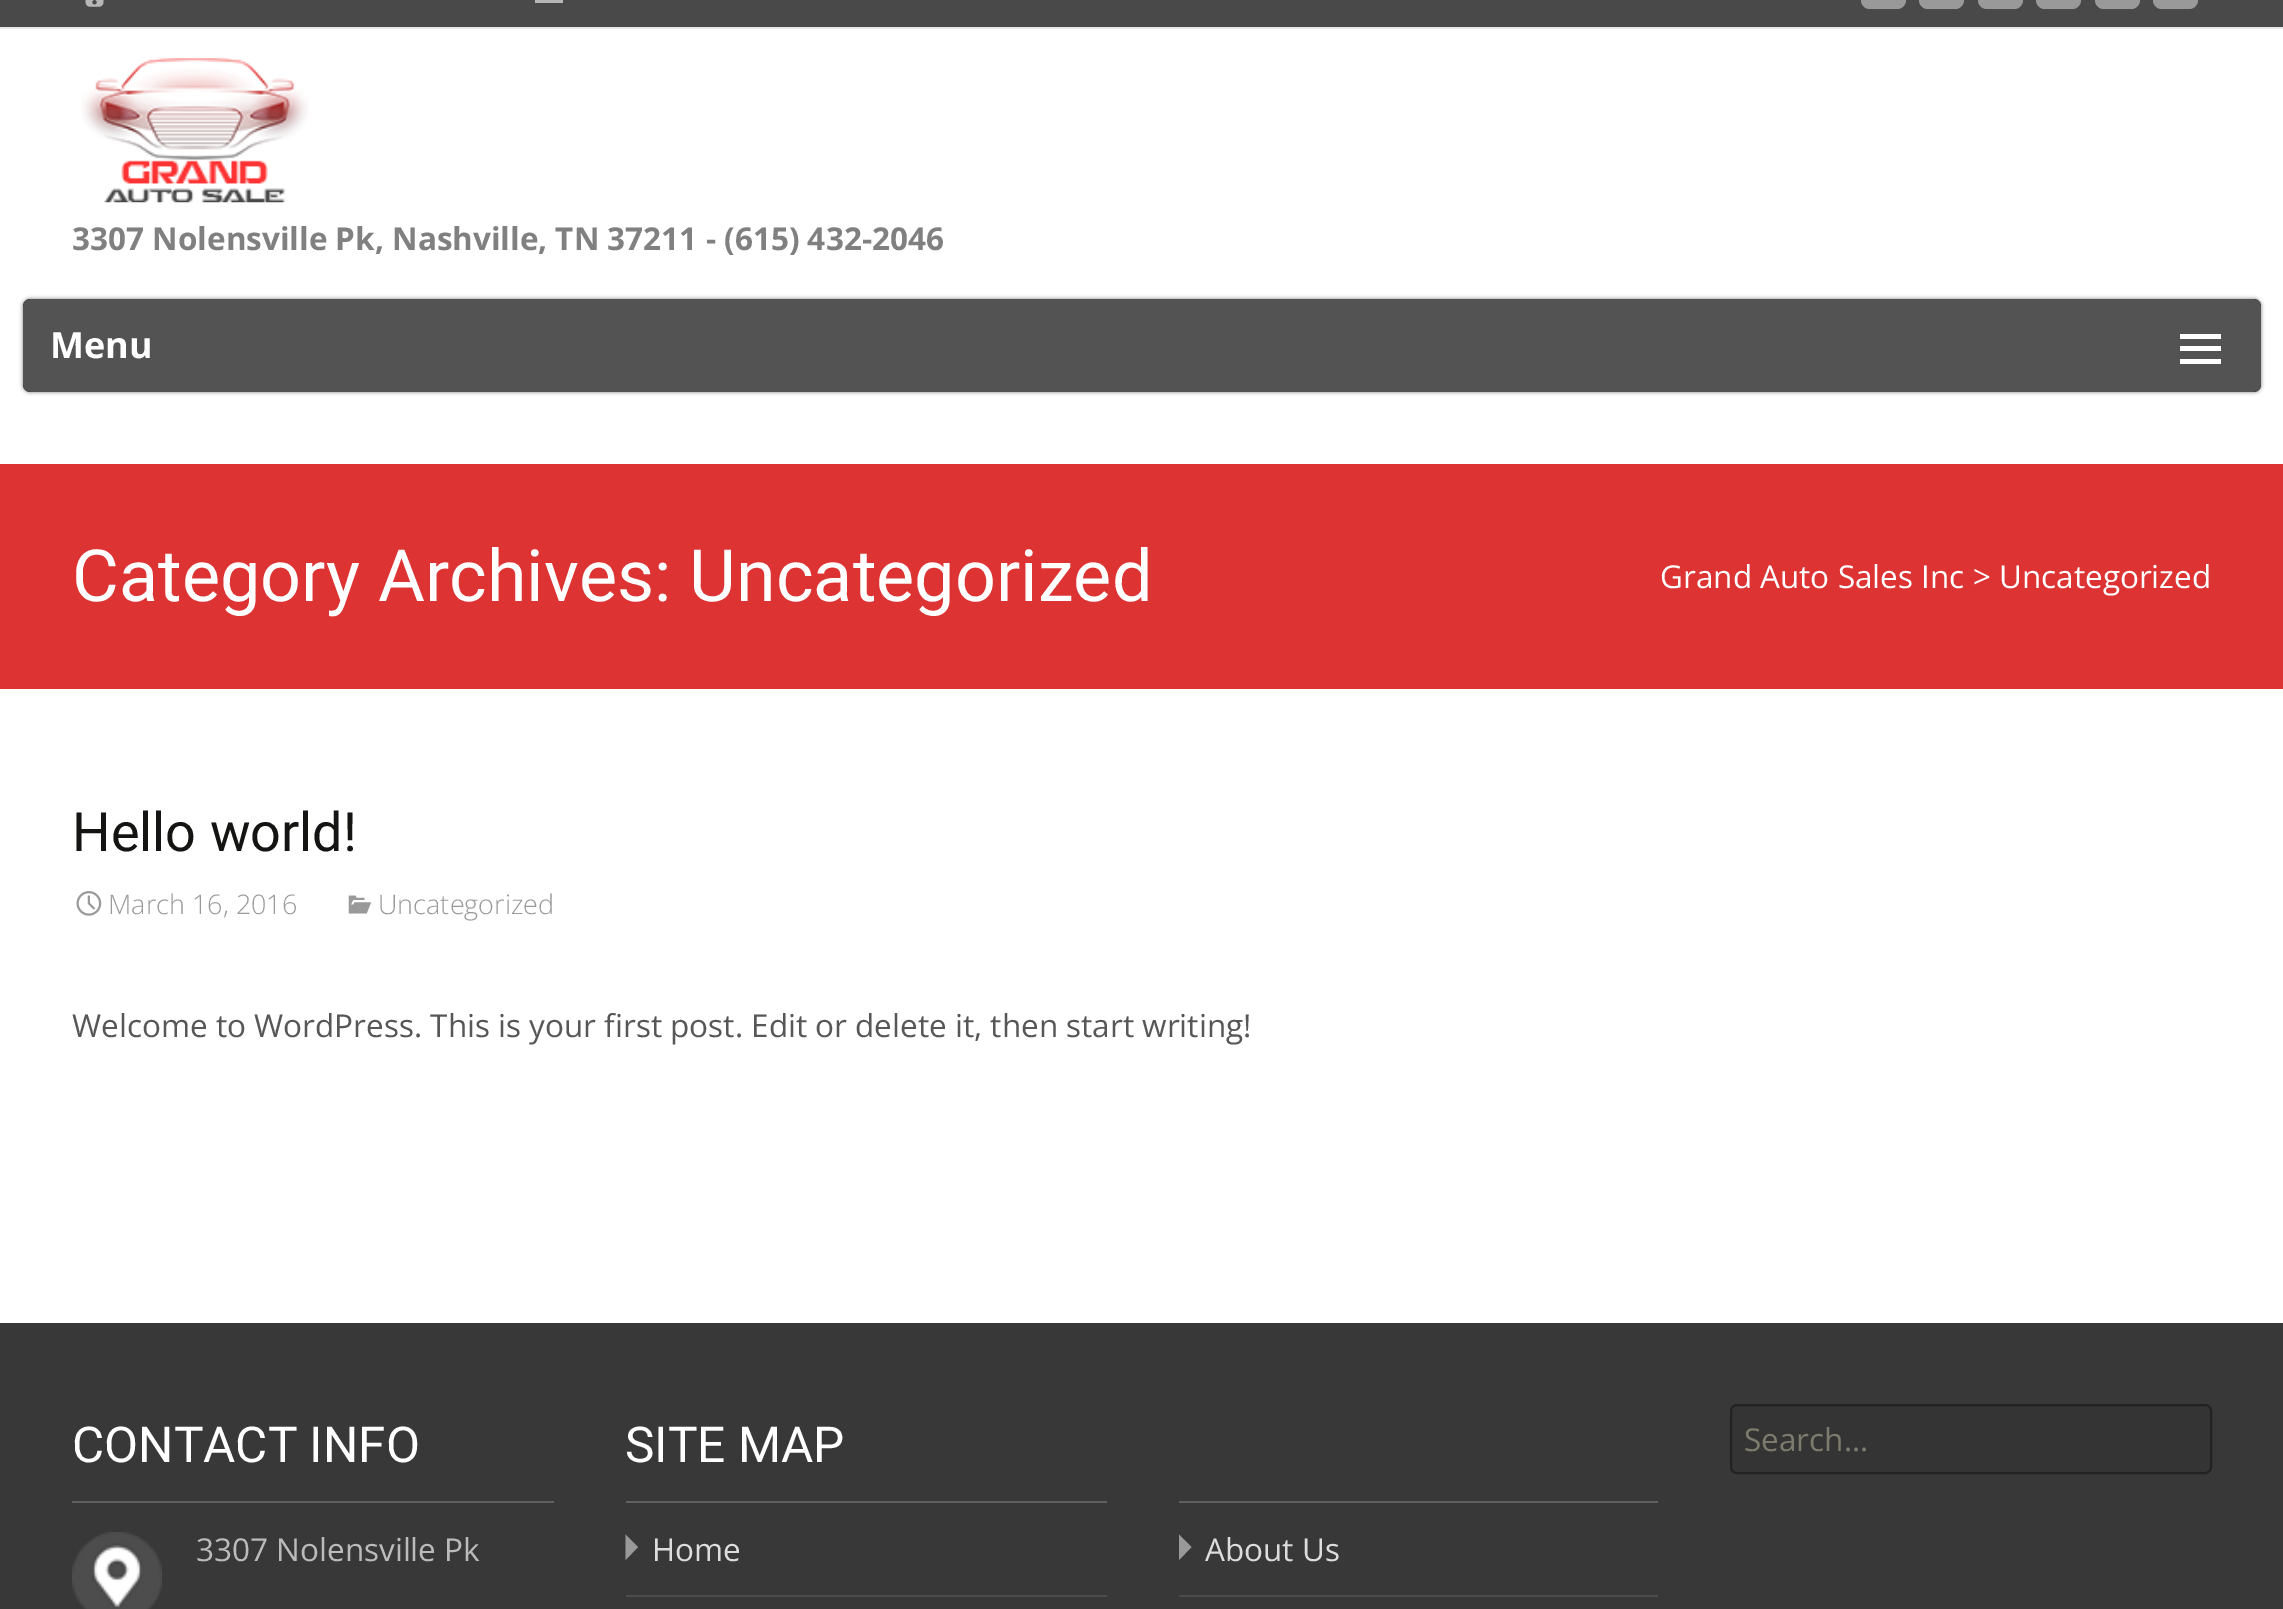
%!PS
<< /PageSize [2283 1609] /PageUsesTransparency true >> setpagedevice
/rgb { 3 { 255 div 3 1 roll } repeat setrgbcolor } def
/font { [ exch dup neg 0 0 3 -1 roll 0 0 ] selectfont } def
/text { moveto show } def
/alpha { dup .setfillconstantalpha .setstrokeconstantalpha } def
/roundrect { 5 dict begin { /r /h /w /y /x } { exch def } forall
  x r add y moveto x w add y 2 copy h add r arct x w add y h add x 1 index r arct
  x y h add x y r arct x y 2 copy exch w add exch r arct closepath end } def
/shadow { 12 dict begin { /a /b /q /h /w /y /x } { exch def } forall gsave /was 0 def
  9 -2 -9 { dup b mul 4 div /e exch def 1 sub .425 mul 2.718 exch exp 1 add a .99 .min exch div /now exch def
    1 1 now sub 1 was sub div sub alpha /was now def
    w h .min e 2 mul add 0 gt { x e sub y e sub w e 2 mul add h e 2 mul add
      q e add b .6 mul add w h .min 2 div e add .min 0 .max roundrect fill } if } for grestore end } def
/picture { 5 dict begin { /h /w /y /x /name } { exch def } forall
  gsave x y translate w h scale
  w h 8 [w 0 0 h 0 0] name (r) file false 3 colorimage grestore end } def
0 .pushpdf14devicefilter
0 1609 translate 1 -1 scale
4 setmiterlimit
255 255 255 rgb
0 0 2283 1609 rectfill
73 73 73 rgb
0 0 2283 27 rectfill
231 231 231 rgb
0 27 2283 2 rectfill
(img_01.rgb) 85 0 19 7 picture
183 183 183 rgb
535 0 28 3 rectfill
153 153 153 rgb
1861 -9 45 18 9 roundrect fill
1919 -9 45 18 9 roundrect fill
1978 -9 45 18 9 roundrect fill
2036 -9 45 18 9 roundrect fill
2095 -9 45 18 9 roundrect fill
2153 -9 45 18 9 roundrect fill
(img_02.rgb) 81 58 228 145 picture
gsave
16 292 moveto 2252 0 rlineto 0 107 rlineto -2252 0 rlineto closepath 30 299 moveto 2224 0 rlineto 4 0 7 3 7 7 rcurveto 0 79 rlineto 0 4 -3 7 -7 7 rcurveto -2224 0 rlineto -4 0 -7 -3 -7 -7 rcurveto 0 -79 rlineto 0 -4 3 -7 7 -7 rcurveto closepath eoclip newpath
50 50 50 rgb
23 299 2238 93 7 2 0.64 shadow
grestore
0.8 alpha
40 40 40 rgb
23 299 2238 93 7 roundrect fill
1 alpha
255 255 255 rgb
2180 364 moveto 0 -5 rlineto 41 0 rlineto 0 5 rlineto closepath 2180 351 moveto 0 -5 rlineto 41 0 rlineto 0 5 rlineto closepath 2180 339 moveto 0 -5 rlineto 41 0 rlineto 0 5 rlineto closepath fill
221 51 51 rgb
0 464 2283 225 rectfill
(img_03.rgb) 76 891 26 25 picture
(img_04.rgb) 348 895 24 19 picture
56 56 56 rgb
0 1323 2283 286 rectfill
96 96 96 rgb
72 1501 482 2 rectfill
(img_05.rgb) 72 1532 90 77 picture
626 1501 481 2 rectfill
76 76 76 rgb
626 1595 481 2 rectfill
153 153 153 rgb
625.5 1560 moveto 12.5 -13 rlineto -12.5 -12.5 rlineto closepath fill
52 52 52 rgb
1731 1405 480 68 6 roundrect gsave fill grestore
34 34 34 rgb
2 setlinewidth
stroke
96 96 96 rgb
1179 1501 479 2 rectfill
76 76 76 rgb
1179 1595 479 2 rectfill
153 153 153 rgb
1179 1560 moveto 12.5 -13 rlineto -12.5 -12.5 rlineto closepath fill
/OpenSans-Bold 31.5 font
128 128 128 rgb
(3307 Nolensville Pk, Nashville, TN 37211 - \(615\) 432-2046) 72 250 text
/OpenSans-Bold 36 font
255 255 255 rgb
(Menu) 50 358 text
/Roboto-Regular 72 font
(Category Archives: Uncategorized) 72 601 text
/OpenSans-Regular 31.5 font
(Grand Auto Sales Inc > Uncategorized) 1660 588 text
/Roboto-Regular 54 font
20 20 18 rgb
(Hello world!) 72 851 text
/OpenSans-Light 27 font
153 153 153 rgb
(March 16, 2016) 108 914 text
(Uncategorized) 378 914 text
/OpenSans-Regular 31.5 font
87 87 87 rgb
(Welcome to WordPress. This is your first post. Edit or delete it, then start writing!) 72 1037 text
/Roboto-Regular 49.5 font
255 255 255 rgb
(CONTACT INFO) 72 1462 text
/OpenSans-Regular 31.5 font
187 187 187 rgb
(3307 Nolensville Pk) 196 1561 text
/Roboto-Regular 49.5 font
255 255 255 rgb
(SITE MAP) 625 1462 text
/OpenSans-Regular 31.5 font
221 221 221 rgb
(Home) 652 1561 text
125 123 109 rgb
(Search...) 1744 1451 text
221 221 221 rgb
(About Us) 1205 1561 text
.poppdf14devicefilter showpage
